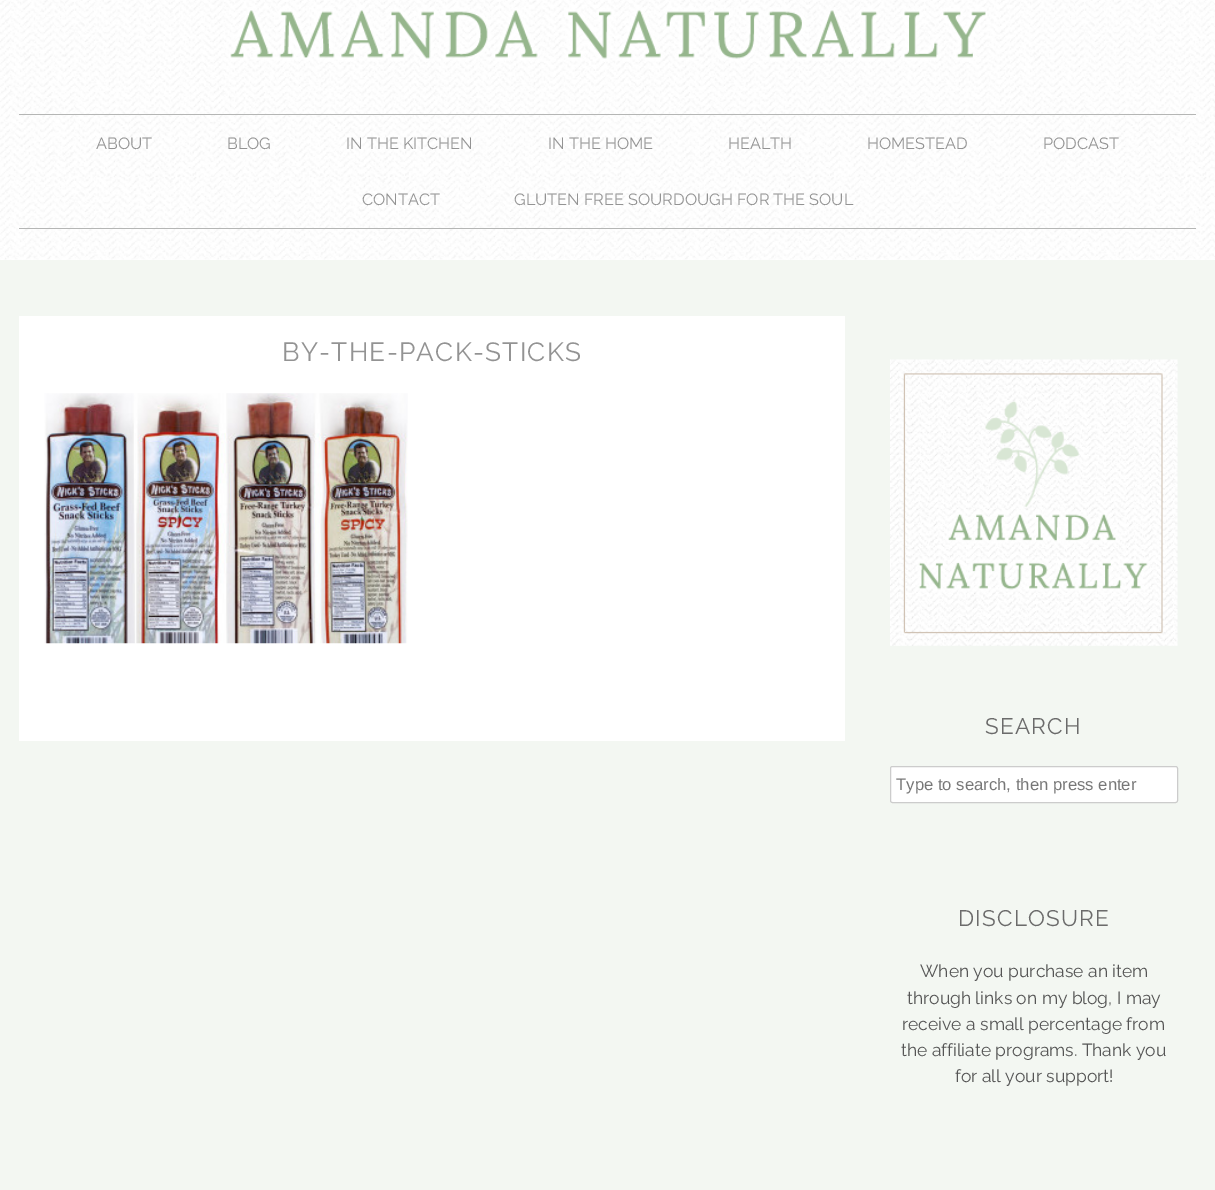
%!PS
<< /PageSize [1215 1190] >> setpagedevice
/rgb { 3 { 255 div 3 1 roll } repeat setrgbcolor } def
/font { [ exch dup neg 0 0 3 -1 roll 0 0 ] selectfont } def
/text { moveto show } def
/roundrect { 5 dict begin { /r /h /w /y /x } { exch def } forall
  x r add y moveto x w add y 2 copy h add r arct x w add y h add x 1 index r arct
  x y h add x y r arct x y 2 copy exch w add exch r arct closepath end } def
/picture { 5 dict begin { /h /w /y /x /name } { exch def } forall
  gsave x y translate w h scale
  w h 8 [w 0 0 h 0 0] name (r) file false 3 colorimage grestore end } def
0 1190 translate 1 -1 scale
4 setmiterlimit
243 247 242 rgb
0 0 1215 1190 rectfill
255 255 255 rgb
0 259 1215 1 rectfill
(img_01.rgb) 0 0 1215 260 picture
(img_02.rgb) 229 7 758 55 picture
181 182 181 rgb
19 114 1177 1 rectfill
19 228 1177 1 rectfill
255 255 255 rgb
19 316 826 425 rectfill
(img_03.rgb) 44 393 364 251 picture
(img_04.rgb) 890 359 288 287 picture
890.5 766.5 287 36 2 roundrect gsave fill grestore
204 204 204 rgb
stroke
/Raleway-Thin 16.25 font
147 147 147 rgb
(ABOUT) 96 149 text
(BLOG) 227 149 text
(IN THE KITCHEN) 346 149 text
(IN THE HOME) 548 149 text
(HEALTH) 728 149 text
(HOMESTEAD) 867 149 text
(PODCAST) 1043 149 text
(CONTACT) 362 205 text
(GLUTEN FREE SOURDOUGH FOR THE SOUL) 514 205 text
/Raleway-Thin 26.25 font
282 361 moveto 1.25 0 (BY-THE-PACK-STICKS) ashow
/Raleway-Thin 22.5 font
107 107 107 rgb
985 734 moveto 1.25 0 (SEARCH) ashow
/LiberationSans-Regular 16.7 font
119 119 119 rgb
(Type to search, then press enter) 896 790 text
/Raleway-Thin 22.5 font
107 107 107 rgb
958 926 moveto 1.25 0 (DISCLOSURE) ashow
/Raleway-Thin 17.5 font
85 85 85 rgb
(When you purchase an item) 920 977 text
(through links on my blog, I may) 907 1004 text
(receive a small percentage from) 902 1030 text
(the affiliate programs. Thank you) 901 1056 text
(for all your support!) 955 1082 text
showpage
